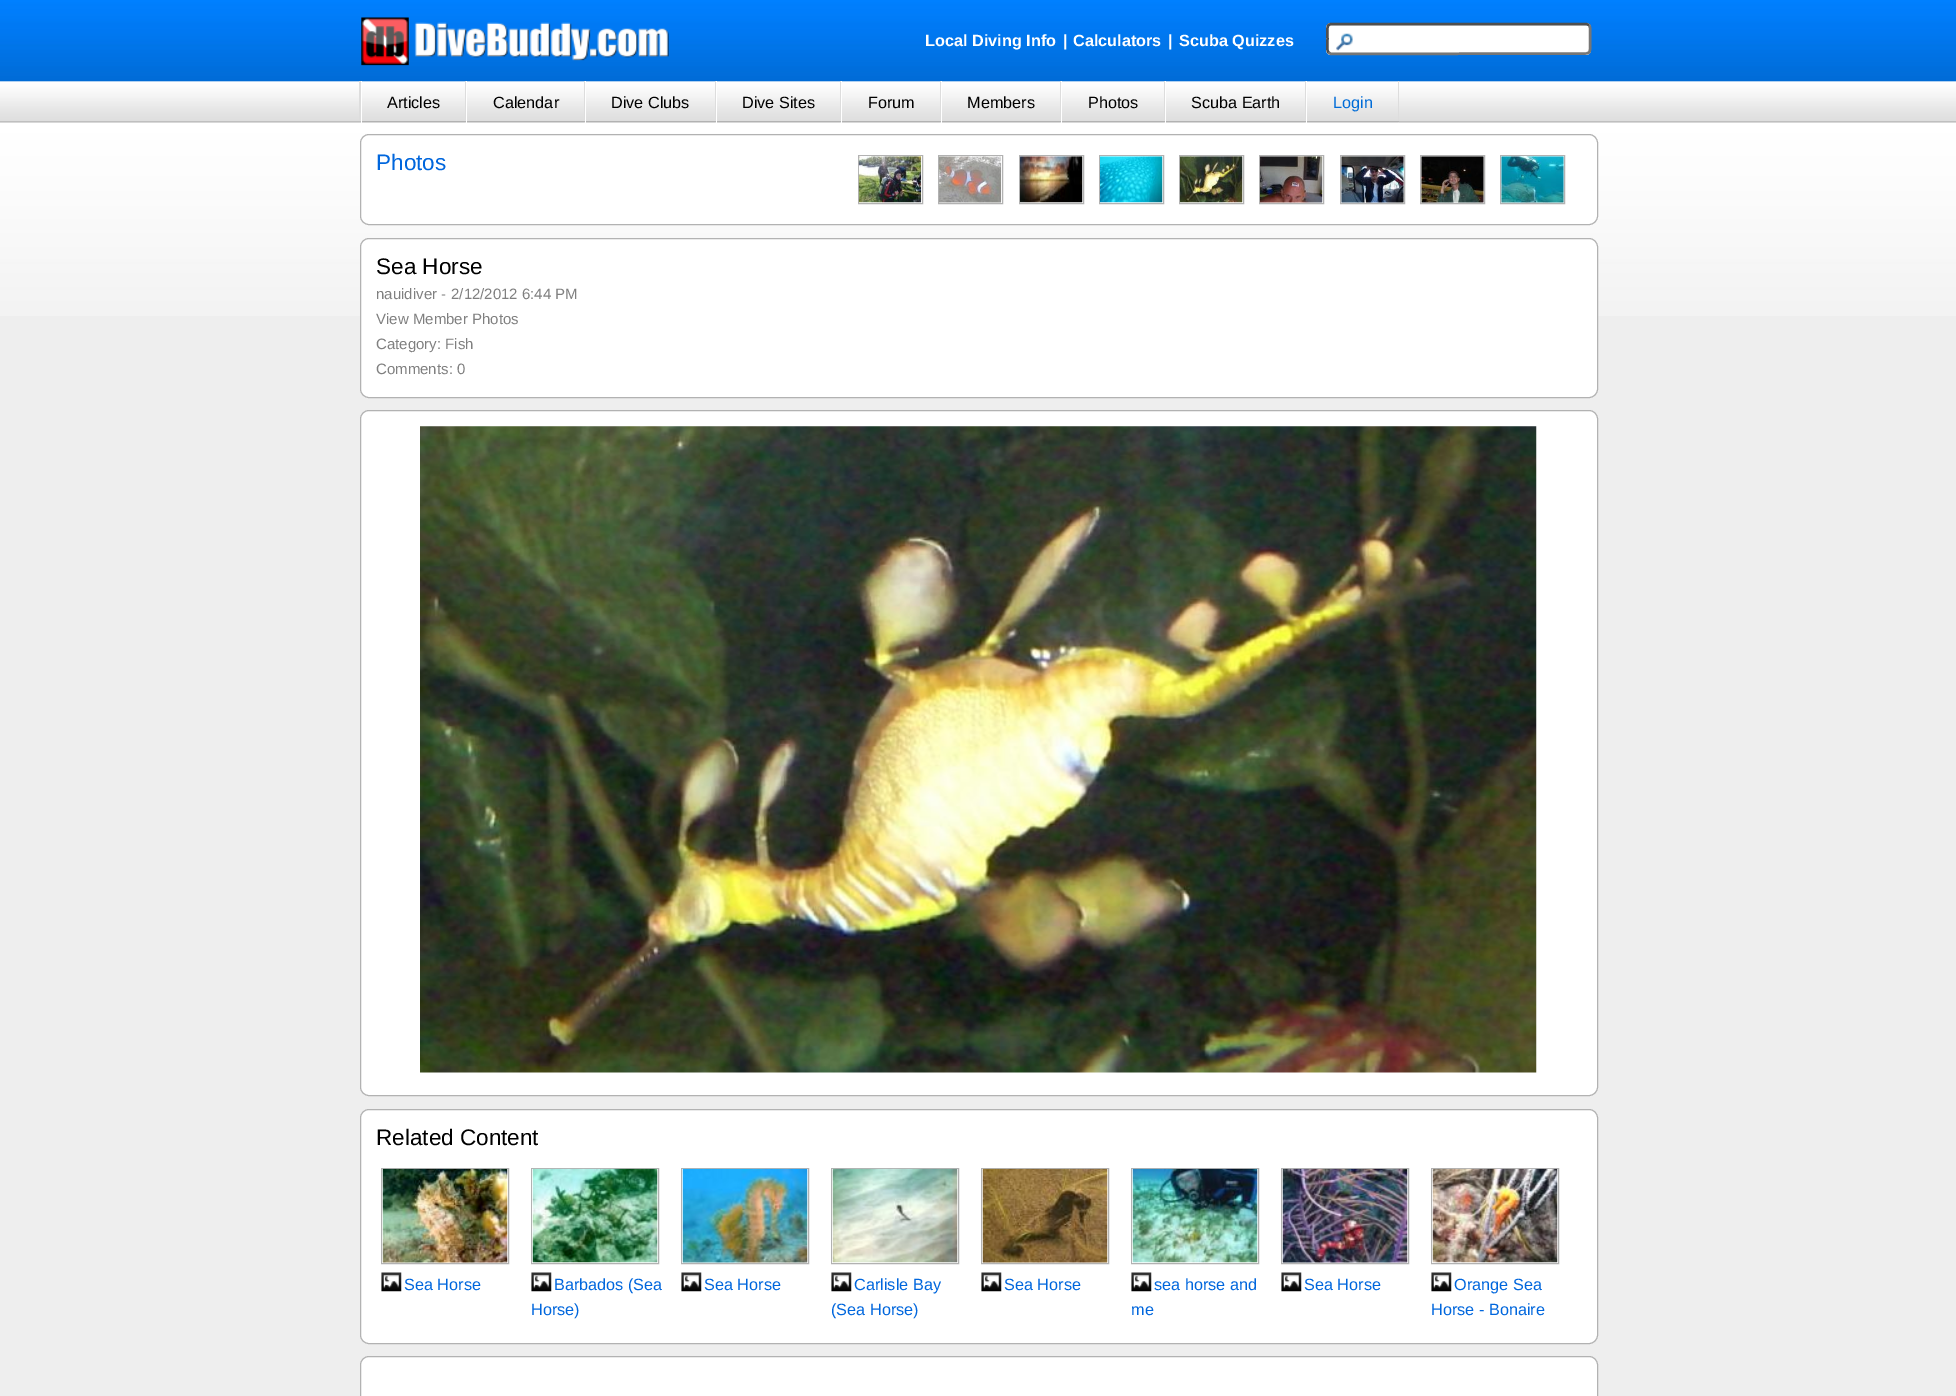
%!PS
<< /PageSize [1956 1396] >> setpagedevice
/rgb { 3 { 255 div 3 1 roll } repeat setrgbcolor } def
/font { [ exch dup neg 0 0 3 -1 roll 0 0 ] selectfont } def
/text { moveto show } def
/roundrect { 5 dict begin { /r /h /w /y /x } { exch def } forall
  x r add y moveto x w add y 2 copy h add r arct x w add y h add x 1 index r arct
  x y h add x y r arct x y 2 copy exch w add exch r arct closepath end } def
/picture { 5 dict begin { /h /w /y /x /name } { exch def } forall
  gsave x y translate w h scale
  w h 8 [w 0 0 h 0 0] name (r) file false 3 colorimage grestore end } def
0 1396 translate 1 -1 scale
4 setmiterlimit
238 238 238 rgb
0 0 1956 1396 rectfill
(img_01.rgb) 0 0 1956 316 picture
(img_02.rgb) 361 17 308 49 picture
255 255 255 rgb
1326 23 265 32 5 roundrect fill
(img_03.rgb) 1336 33 17 18 picture
118 118 118 rgb
2.5 setlinewidth
1589 25 moveto 2 2 1 11 1 14 rcurveto 0 2.5 1 11 -1 13.5 rcurveto -2.5 1 rlineto -255.5 0.5 rlineto -2.5 -1.5 rlineto stroke
79 79 79 rgb
1328.5 52.5 moveto -2 -2 -1 -11 -1 -13.5 rcurveto 0 -3 -1 -11.5 1 -14 rcurveto 2.5 -1 rlineto 255 0 rlineto 3 1 rlineto stroke
221 221 221 rgb
359 81 2 40 rectfill
465 81 1 42 rectfill
178 178 178 rgb
361 121 105 1 rectfill
255 255 255 rgb
361 81 1 42 rectfill
221 221 221 rgb
584 81 1 42 rectfill
178 178 178 rgb
466 121 119 1 rectfill
255 255 255 rgb
466 81 1 42 rectfill
221 221 221 rgb
715 81 1 42 rectfill
178 178 178 rgb
585 121 131 1 rectfill
255 255 255 rgb
585 81 1 42 rectfill
221 221 221 rgb
840 81 1 42 rectfill
178 178 178 rgb
716 121 125 1 rectfill
255 255 255 rgb
716 81 1 42 rectfill
221 221 221 rgb
940 81 1 42 rectfill
178 178 178 rgb
841 121 100 1 rectfill
255 255 255 rgb
841 81 1 42 rectfill
221 221 221 rgb
1060 81 1 42 rectfill
178 178 178 rgb
941 121 120 1 rectfill
255 255 255 rgb
941 81 1 42 rectfill
221 221 221 rgb
1164 81 1 42 rectfill
178 178 178 rgb
1061 121 104 1 rectfill
255 255 255 rgb
1061 81 1 42 rectfill
221 221 221 rgb
1305 81 1 42 rectfill
178 178 178 rgb
1165 121 141 1 rectfill
255 255 255 rgb
1165 81 1 42 rectfill
221 221 221 rgb
1398 81 1 42 rectfill
178 178 178 rgb
1306 121 93 1 rectfill
255 255 255 rgb
1306 81 1 42 rectfill
360.5 134.5 1237 90 8.5 roundrect gsave fill grestore
178 178 178 rgb
1 setlinewidth
stroke
858.5 155.5 64 48 rectstroke
(img_04.rgb) 858 156 64 47 picture
938.5 155.5 64 48 rectstroke
(img_05.rgb) 939 156 63 47 picture
1019.5 155.5 64 48 rectstroke
(img_06.rgb) 1020 156 63 47 picture
1099.5 155.5 64 48 rectstroke
(img_07.rgb) 1100 156 63 47 picture
1179.5 155.5 64 48 rectstroke
(img_08.rgb) 1180 156 63 47 picture
1259.5 155.5 64 48 rectstroke
(img_09.rgb) 1260 156 63 47 picture
1340.5 155.5 64 48 rectstroke
(img_10.rgb) 1341 156 63 47 picture
1420.5 155.5 64 48 rectstroke
(img_11.rgb) 1421 156 63 47 picture
1500.5 155.5 64 48 rectstroke
(img_12.rgb) 1501 156 63 47 picture
255 255 255 rgb
360.5 238.5 1237 159 8.5 roundrect gsave fill grestore
178 178 178 rgb
stroke
255 255 255 rgb
360.5 410.5 1237 685 8.5 roundrect gsave fill grestore
178 178 178 rgb
stroke
(img_13.rgb) 420 426 1117 647 picture
255 255 255 rgb
360.5 1109.5 1237 234 8.5 roundrect gsave fill grestore
178 178 178 rgb
stroke
381.5 1168.5 127 95 rectstroke
(img_14.rgb) 382 1168 126 95 picture
(img_15.rgb) 381 1272 21 20 picture
531.5 1168.5 127 95 rectstroke
(img_16.rgb) 532 1168 126 95 picture
(img_15.rgb) 531 1272 21 20 picture
681.5 1168.5 127 95 rectstroke
(img_17.rgb) 682 1168 126 95 picture
(img_15.rgb) 681 1272 21 20 picture
831.5 1168.5 127 95 rectstroke
(img_18.rgb) 832 1168 126 95 picture
(img_15.rgb) 831 1272 21 20 picture
981.5 1168.5 127 95 rectstroke
(img_19.rgb) 982 1168 126 95 picture
(img_15.rgb) 981 1272 21 20 picture
1131.5 1168.5 127 95 rectstroke
(img_20.rgb) 1132 1168 126 95 picture
(img_15.rgb) 1131 1272 21 20 picture
1281.5 1168.5 127 95 rectstroke
(img_21.rgb) 1282 1168 126 95 picture
(img_15.rgb) 1281 1272 21 20 picture
1431.5 1168.5 127 95 rectstroke
(img_22.rgb) 1432 1168 126 95 picture
(img_15.rgb) 1431 1272 21 20 picture
255 255 255 rgb
360.5 1356.5 1237 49 8.5 roundrect gsave fill grestore
178 178 178 rgb
stroke
/LiberationSans-Bold 16.25 font
255 255 255 rgb
(Local Diving Info) 925 46 text
(|) 1063 46 text
(Calculators) 1073 46 text
(|) 1168 46 text
(Scuba Quizzes) 1179 46 text
/LiberationSans-Regular 16.25 font
0 0 0 rgb
(Articles) 387 108 text
(Calendar) 493 108 text
(Dive Clubs) 611 108 text
(Dive Sites) 742 108 text
(Forum) 868 108 text
(Members) 967 108 text
(Photos) 1088 108 text
(Scuba Earth) 1191 108 text
0 108 216 rgb
(Login) 1333 108 text
/LiberationSans-Regular 22.5 font
0 102 221 rgb
(Photos) 376 170 text
0 0 0 rgb
(Sea Horse) 376 274 text
/LiberationSans-Regular 15 font
128 128 128 rgb
(nauidiver) 376 299 text
(-) 441 299 text
(2/12/2012 6:44 PM) 451 299 text
(View Member Photos) 376 324 text
(Category: Fish) 376 349 text
(Comments: 0) 376 374 text
/LiberationSans-Regular 22.5 font
0 0 0 rgb
(Related Content) 376 1145 text
/LiberationSans-Regular 16.25 font
0 102 221 rgb
(Sea Horse) 404 1290 text
(Barbados \(Sea) 554 1290 text
(Horse\)) 531 1315 text
(Sea Horse) 704 1290 text
(Carlisle Bay) 854 1290 text
(\(Sea Horse\)) 831 1315 text
(Sea Horse) 1004 1290 text
(sea horse and) 1154 1290 text
(me) 1131 1315 text
(Sea Horse) 1304 1290 text
(Orange Sea) 1454 1290 text
(Horse - Bonaire) 1431 1315 text
showpage
